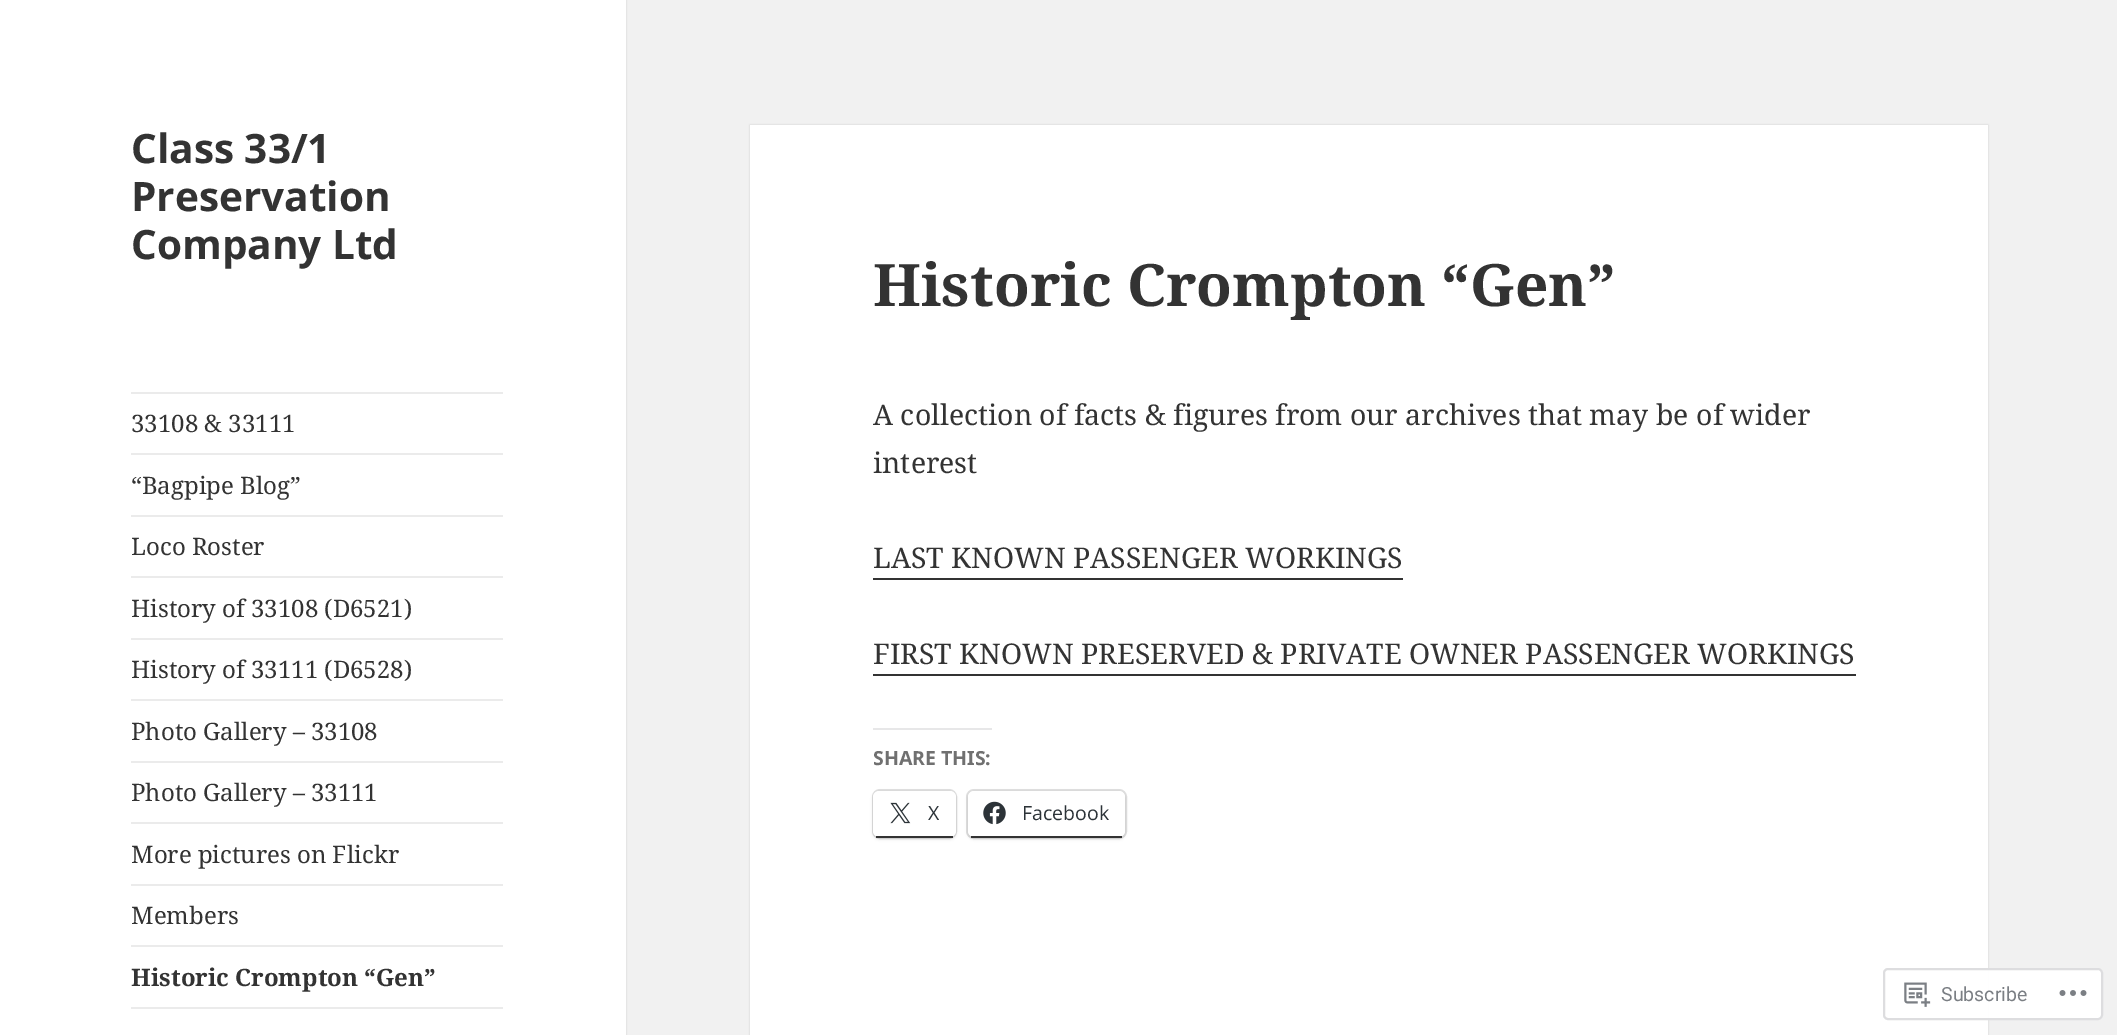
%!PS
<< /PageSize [2117 1035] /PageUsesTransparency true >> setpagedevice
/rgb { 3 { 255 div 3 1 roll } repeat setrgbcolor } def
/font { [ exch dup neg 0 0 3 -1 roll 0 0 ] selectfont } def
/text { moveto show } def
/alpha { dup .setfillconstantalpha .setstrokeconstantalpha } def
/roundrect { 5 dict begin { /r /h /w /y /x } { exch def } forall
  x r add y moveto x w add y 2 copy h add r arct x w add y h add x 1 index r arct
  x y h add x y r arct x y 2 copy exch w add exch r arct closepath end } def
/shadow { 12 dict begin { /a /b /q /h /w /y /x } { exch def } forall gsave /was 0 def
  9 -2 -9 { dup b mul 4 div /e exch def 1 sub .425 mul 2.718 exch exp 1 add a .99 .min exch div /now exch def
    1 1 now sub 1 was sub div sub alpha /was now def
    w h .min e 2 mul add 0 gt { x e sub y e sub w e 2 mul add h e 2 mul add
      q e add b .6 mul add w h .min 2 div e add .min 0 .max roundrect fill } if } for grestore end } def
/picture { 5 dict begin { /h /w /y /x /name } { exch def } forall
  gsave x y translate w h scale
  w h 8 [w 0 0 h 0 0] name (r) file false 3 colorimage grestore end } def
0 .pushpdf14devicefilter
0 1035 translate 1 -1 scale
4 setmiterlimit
241 241 241 rgb
0 0 2117 1035 rectfill
0 0 0 rgb
0 0 626 1035 0 1 0.15 shadow
255 255 255 rgb
0 0 626 1035 rectfill
235 235 235 rgb
131 392 372 2 rectfill
131 1007 372 2 rectfill
131 453 372 2 rectfill
131 515 372 2 rectfill
131 576 372 2 rectfill
131 638 372 2 rectfill
131 699 372 2 rectfill
131 761 372 2 rectfill
131 822 372 2 rectfill
131 884 372 2 rectfill
131 945 372 2 rectfill
0 0 0 rgb
750 125 1238 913 0 1 0.15 shadow
255 255 255 rgb
750 125 1238 910 rectfill
51 51 51 rgb
873 578 530 2 rectfill
873 674 983 2 rectfill
231 231 232 rgb
873 728 119 2 rectfill
224 224 224 rgb
2 setlinewidth
873 790 83 48 7 roundrect stroke
0 0 0 rgb
873 792 83 47 6 1.5 0.12 shadow
255 255 255 rgb
873 791 83 46 6 roundrect fill
51 51 51 rgb
876 836 77 2 rectfill
(img_01.rgb) 890 802 21 22 picture
224 224 224 rgb
967 790 159 48 7 roundrect stroke
0 0 0 rgb
968 792 157 47 6 1.5 0.12 shadow
255 255 255 rgb
968 791 157 46 6 roundrect fill
51 51 51 rgb
971 836 151 2 rectfill
(img_02.rgb) 983 801 23 24 picture
0.98 alpha
255 255 255 rgb
1883 968 220 52 5 roundrect fill
220 220 222 rgb
1884 969 218 50 4 roundrect stroke
1 alpha
(img_03.rgb) 1904 982 27 25 picture
(img_04.rgb) 2059 990 28 6 picture
/NotoSans-Bold 40.5 font
51 51 51 rgb
(Class 33/1) 131 163 text
(Preservation) 131 211 text
(Company Ltd) 131 259 text
/NotoSerif-Regular 24 font
(33108 & 33111) 131 432 text
(“Bagpipe Blog”) 131 494 text
(Loco Roster) 131 555 text
(History of 33108 \(D6521\)) 131 617 text
(History of 33111 \(D6528\)) 131 678 text
(Photo Gallery – 33108) 131 740 text
(Photo Gallery – 33111) 131 801 text
(More pictures on Flickr) 131 863 text
(Members) 131 924 text
/NotoSerif-Bold 24 font
(Historic Crompton “Gen”) 131 986 text
/NotoSerif-Bold 58.5 font
(Historic Crompton “Gen”) 873 306 text
/NotoSerif-Regular 28.5 font
(A collection of facts & figures from our archives that may be of wider) 873 425 text
(interest) 873 473 text
(LAST KNOWN PASSENGER WORKINGS) 873 568 text
(FIRST KNOWN PRESERVED & PRIVATE OWNER PASSENGER WORKINGS) 873 664 text
/NotoSans-Bold 19.5 font
112 112 112 rgb
(SHARE THIS:) 873 765 text
/OpenSans-Regular 19.5 font
44 51 56 rgb
(X) 928 820 text
(Facebook) 1022 820 text
/Roboto-Regular 19.5 font
123 127 132 rgb
(Subscribe) 1941 1001 text
.poppdf14devicefilter showpage
